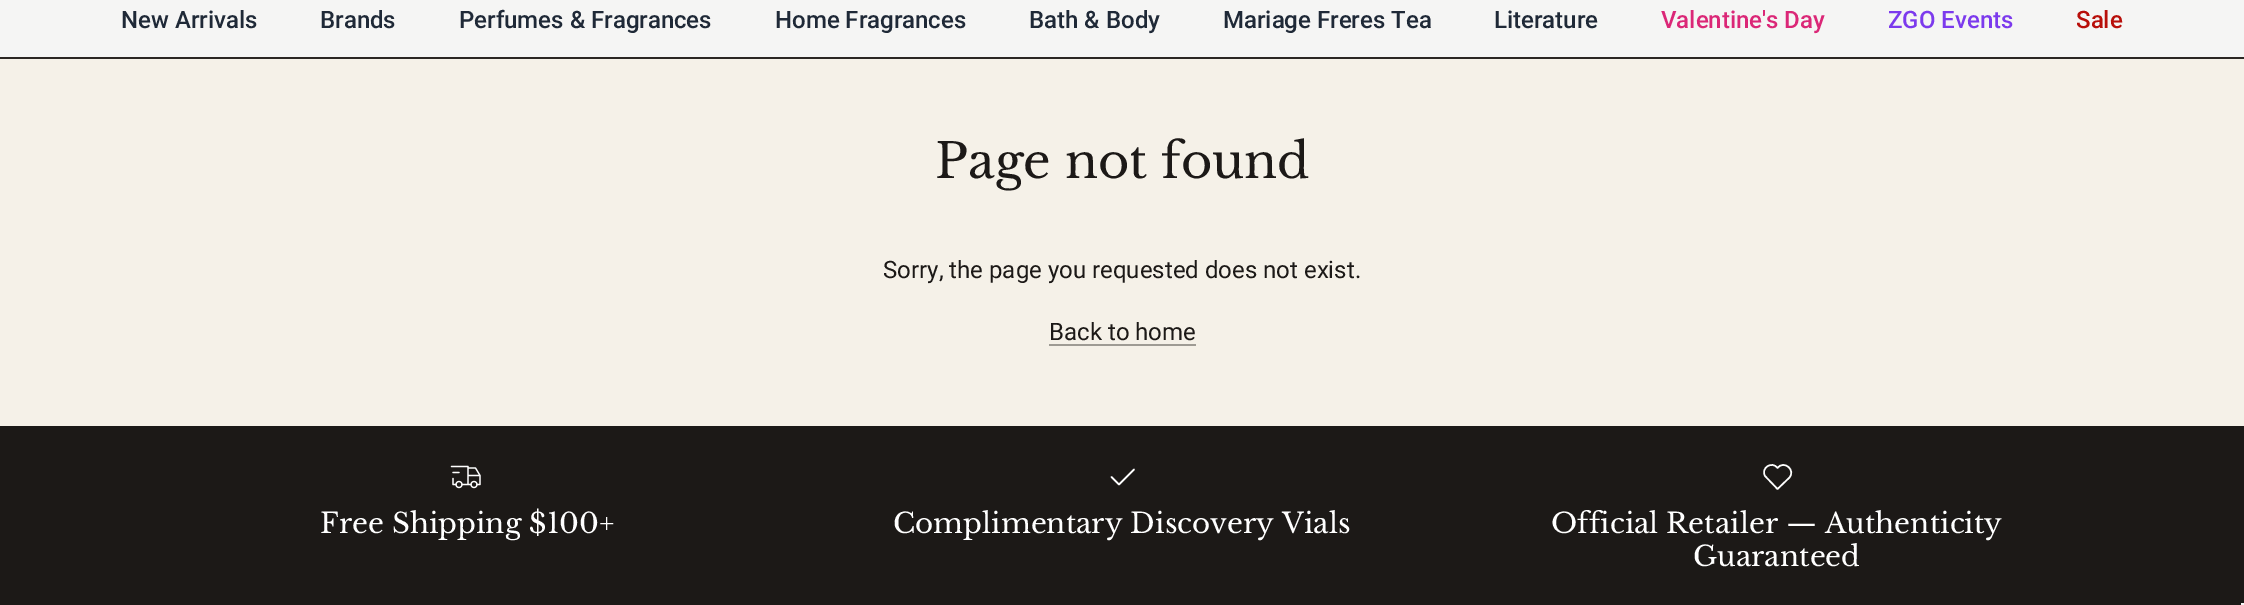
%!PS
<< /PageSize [2244 605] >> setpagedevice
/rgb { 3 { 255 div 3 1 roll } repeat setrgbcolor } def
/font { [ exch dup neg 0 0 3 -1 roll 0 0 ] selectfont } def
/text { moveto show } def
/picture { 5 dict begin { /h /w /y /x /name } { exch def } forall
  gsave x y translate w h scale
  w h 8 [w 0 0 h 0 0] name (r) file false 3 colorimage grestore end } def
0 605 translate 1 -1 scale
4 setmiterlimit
245 241 232 rgb
0 0 2244 605 rectfill
43 39 35 rgb
0 57 2244 2 rectfill
245 245 244 rgb
0 0 2244 57 rectfill
158 155 148 rgb
1049 344 147 2 rectfill
28 25 23 rgb
0 426 2244 179 rectfill
(img_01.rgb) 450 465 31 24 picture
255 255 255 rgb
1.5 setlinewidth
1 setlinecap
1 setlinejoin
1111.5 477 moveto 7.5 7.5 rlineto 15 -15 rlineto stroke
1789 478 moveto -11.5 11 rlineto -12.5 -13 rlineto -4.5 -8 7 -15.5 12.5 -8 rcurveto 6.5 -8.5 19 2.5 11.5 10 rcurveto stroke
245 245 245 rgb
2241 603 3 2 rectfill
/Roboto-Medium 24 font
31 41 55 rgb
(New Arrivals) 121 28 text
(Brands) 320 28 text
(Perfumes & Fragrances) 459 28 text
(Home Fragrances) 775 28 text
(Bath & Body) 1029 28 text
(Mariage Freres Tea) 1223 28 text
(Literature) 1494 28 text
219 39 119 rgb
(Valentine's Day) 1661 28 text
124 58 237 rgb
(ZGO Events) 1888 28 text
184 15 10 rgb
(Sale) 2076 28 text
/LibreBaskerville-Regular 48 font
28 25 23 rgb
(Page not found) 935 178 text
/Roboto-Regular 24 font
(Sorry, the page you requested does not exist.) 883 278 text
(Back to home) 1049 340 text
/LibreBaskerville-Regular 27.8 font
255 255 255 rgb
(Free Shipping $100+) 320 533 text
(Complimentary Discovery Vials) 893 533 text
(Official Retailer — Authenticity) 1551 533 text
(Guaranteed) 1693 566 text
showpage
